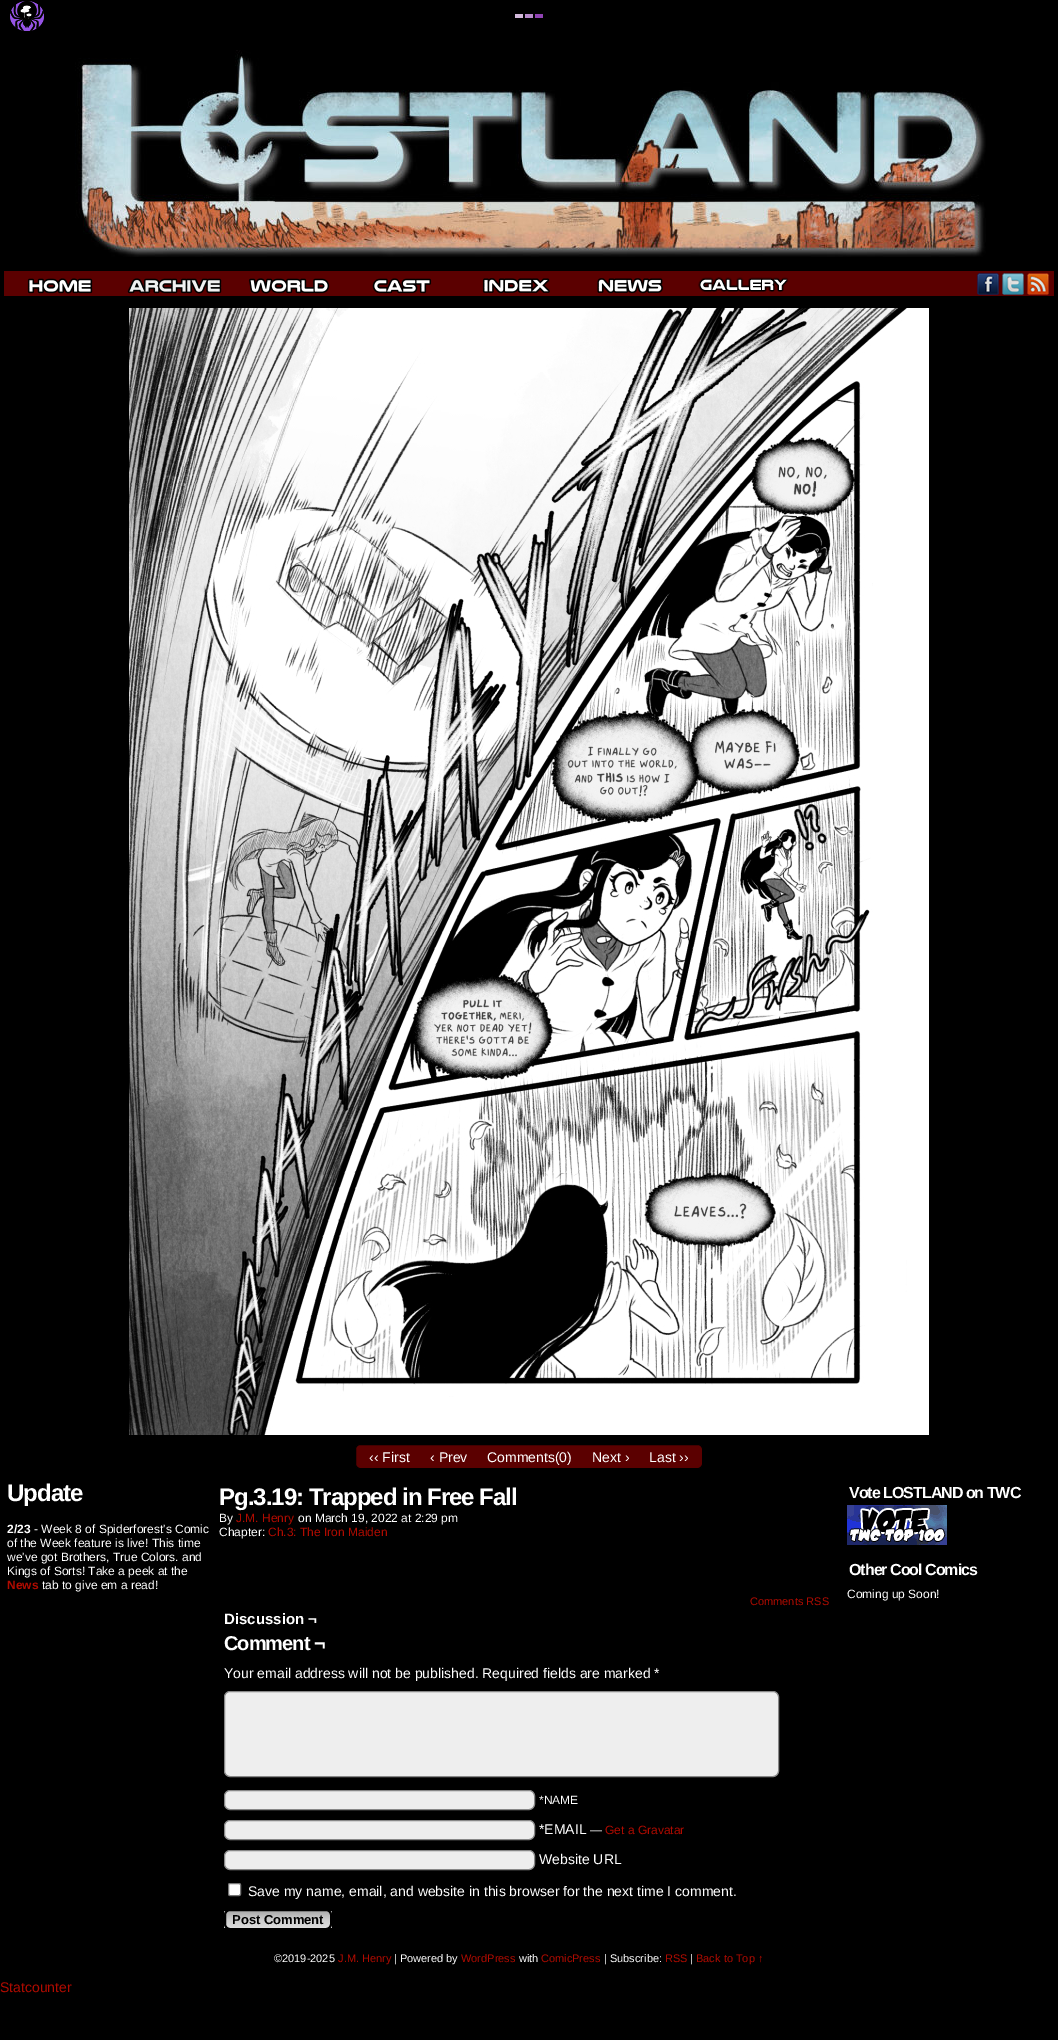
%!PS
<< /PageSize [1058 2040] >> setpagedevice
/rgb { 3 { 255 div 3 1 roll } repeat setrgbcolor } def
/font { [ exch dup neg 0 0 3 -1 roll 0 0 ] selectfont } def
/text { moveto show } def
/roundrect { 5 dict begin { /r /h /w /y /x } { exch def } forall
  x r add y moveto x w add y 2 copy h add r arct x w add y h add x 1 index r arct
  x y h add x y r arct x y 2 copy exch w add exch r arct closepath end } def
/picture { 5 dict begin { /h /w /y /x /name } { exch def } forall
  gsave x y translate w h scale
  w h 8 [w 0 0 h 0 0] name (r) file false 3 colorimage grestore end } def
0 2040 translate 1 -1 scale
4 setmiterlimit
0 0 0 rgb
0 0 1058 2040 rectfill
(img_01.rgb) 10 1 34 30 picture
(img_02.rgb) 515 14 28 4 picture
(img_03.rgb) 75 50 911 207 picture
91 0 0 rgb
4 271 1050 25 rectfill
(img_04.rgb) 27 278 66 16 picture
(img_05.rgb) 127 278 95 16 picture
(img_06.rgb) 248 278 82 16 picture
(img_07.rgb) 372 278 60 16 picture
(img_08.rgb) 482 278 68 16 picture
(img_09.rgb) 597 278 66 16 picture
(img_10.rgb) 698 277 91 15 picture
(img_11.rgb) 977 273 22 22 picture
(img_12.rgb) 1002 273 22 22 picture
(img_13.rgb) 1027 273 22 22 picture
(img_14.rgb) 129 308 800 1127 picture
355.5 1444.5 347 24 4.5 roundrect gsave fill grestore
0 0 0 rgb
stroke
238 238 238 rgb
224.5 1691.5 554 85 5.5 roundrect gsave fill grestore
136 136 136 rgb
stroke
238 238 238 rgb
224.5 1790.5 310 19 5.5 roundrect gsave fill grestore
136 136 136 rgb
stroke
238 238 238 rgb
224.5 1820.5 310 19 5.5 roundrect gsave fill grestore
136 136 136 rgb
stroke
238 238 238 rgb
224.5 1850.5 310 19 5.5 roundrect gsave fill grestore
136 136 136 rgb
stroke
255 255 255 rgb
228.5 1883.5 12 12 1.5 roundrect gsave fill grestore
118 118 118 rgb
stroke
gsave
224 1909 108 21 6 roundrect clip newpath
gsave 224 1911 moveto 108 0 rlineto 0 17 rlineto -108 0 rlineto closepath clip newpath
<< /ShadingType 2 /ColorSpace /DeviceRGB /Coords [278 1911 278 1928] /Extend [true true] /Function << /FunctionType 3 /Domain [0 1] /Functions [<< /FunctionType 2 /Domain [0 1] /C0 [0.667 0.667 0.667] /C1 [0.8 0.8 0.8] /N 1 >> << /FunctionType 2 /Domain [0 1] /C0 [0.8 0.8 0.8] /C1 [0.867 0.867 0.867] /N 1 >>] /Bounds [0.5] /Encode [0 1 0 1] >> >> shfill grestore
grestore
0 0 0 rgb
2 setlinewidth
225 1910 106 19 5 roundrect stroke
(img_15.rgb) 847 1505 100 40 picture
/LiberationSans-Regular 14 font
255 255 255 rgb
(‹‹ First) 369 1462 text
(‹ Prev) 430 1462 text
(Comments\(0\)) 487 1462 text
(Next ›) 592 1462 text
(Last ››) 649 1462 text
/LiberationSans-Bold 24 font
7 1501 moveto -1 0 (Update) ashow
/LiberationSans-Bold 12 font
(2/23) 7 1533 text
/LiberationSans-Regular 12 font
(- Week 8 of Spiderforest's Comic) 34 1533 text
(of the Week feature is live! This time) 7 1547 text
(we've got Brothers, True Colors. and) 7 1561 text
(Kings of Sorts! Take a peek at the) 7 1575 text
/LiberationSans-Bold 12 font
176 11 0 rgb
(News) 7 1589 text
/LiberationSans-Regular 12 font
255 255 255 rgb
(tab to give em a read!) 42 1589 text
/LiberationSans-Bold 24 font
219 1505 moveto -1 0 (Pg.3.19: Trapped in Free Fall) ashow
/LiberationSans-Regular 12 font
(By) 219 1522 text
176 11 0 rgb
(J.M. Henry) 236 1522 text
255 255 255 rgb
(on March 19, 2022 at 2:29 pm) 298 1522 text
(Chapter:) 219 1536 text
176 11 0 rgb
(Ch.3: The Iron Maiden) 268 1536 text
/LiberationSans-Regular 11 font
(Comments RSS) 750 1605 text
/LiberationSans-Bold 15 font
255 255 255 rgb
(Discussion ¬) 224 1624 text
/LiberationSans-Bold 20 font
224 1650 moveto -1 0 (Comment ¬) ashow
/LiberationSans-Regular 14 font
(Your email address will not be published. Required fields are marked *) 224 1678 text
/LiberationSans-Regular 12 font
(*NAME) 539 1804 text
/LiberationSans-Regular 14 font
(*EMAIL) 539 1834 text
/LiberationSans-Regular 12 font
(—) 590 1834 text
176 11 0 rgb
(Get a Gravatar) 605 1834 text
/LiberationSans-Regular 14 font
255 255 255 rgb
(Website URL) 539 1864 text
(Save my name, email, and website in this browser for the next time I comment.) 248 1896 text
/LiberationSans-Bold 13 font
0 0 0 rgb
(Post Comment) 232 1924 text
/LiberationSans-Bold 16 font
255 255 255 rgb
849 1498 moveto -1 0 (Vote LOSTLAND on TWC) ashow
849 1575 moveto -1 0 (Other Cool Comics) ashow
/LiberationSans-Regular 12 font
(Coming up Soon!) 847 1598 text
/LiberationSans-Regular 11 font
(©2019-2025) 274 1962 text
176 11 0 rgb
(J.M. Henry) 338 1962 text
255 255 255 rgb
(| Powered by) 394 1962 text
176 11 0 rgb
(WordPress) 461 1962 text
255 255 255 rgb
(with) 519 1962 text
176 11 0 rgb
(ComicPress) 541 1962 text
255 255 255 rgb
(| Subscribe:) 604 1962 text
176 11 0 rgb
(RSS) 665 1962 text
255 255 255 rgb
(|) 690 1962 text
176 11 0 rgb
(Back to Top ↑) 696 1962 text
/LiberationSans-Regular 14 font
(Statcounter) 0 1992 text
showpage
